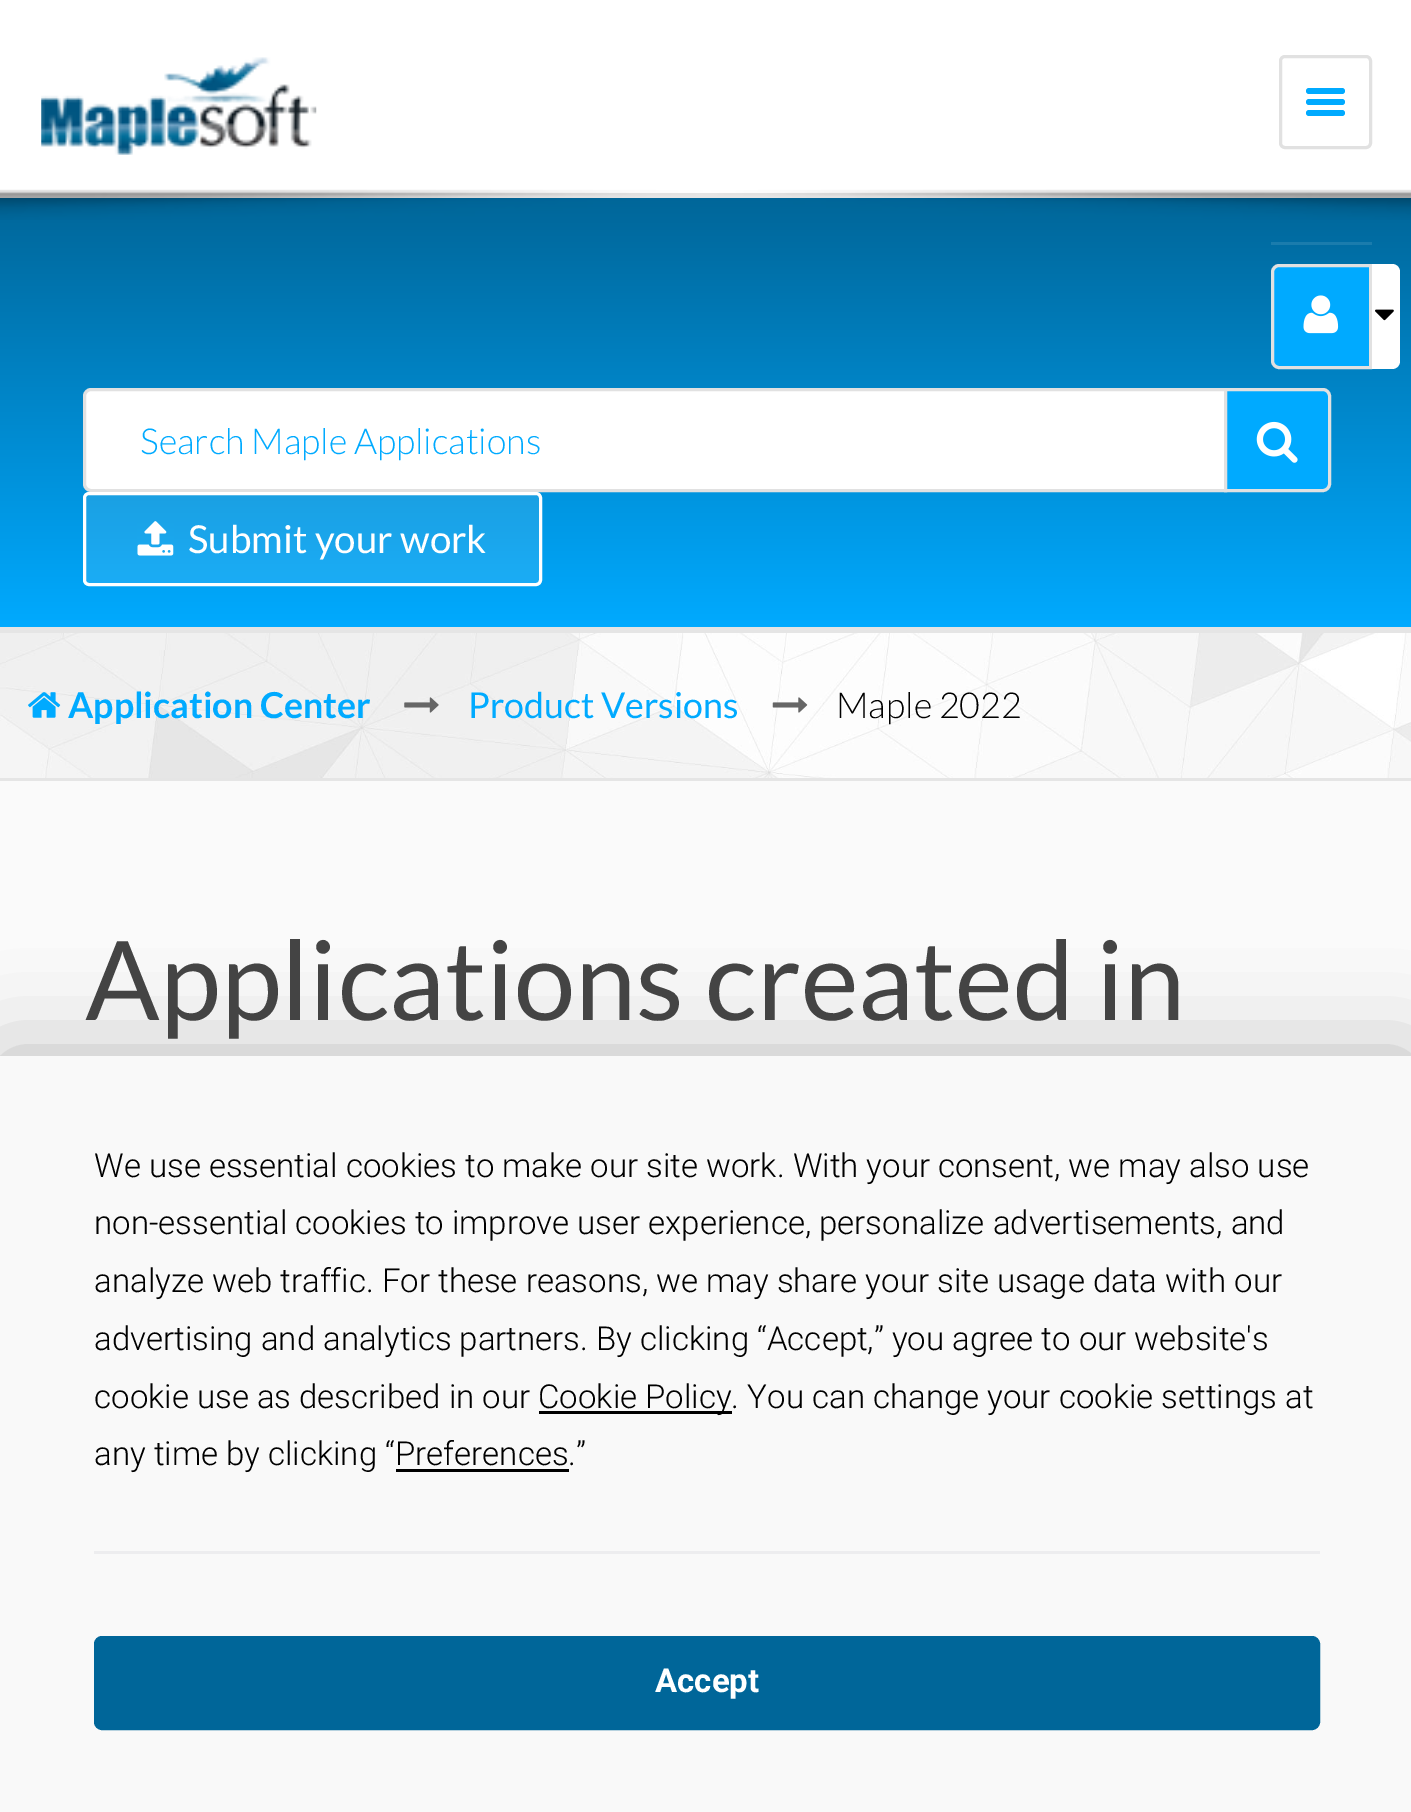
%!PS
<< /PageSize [1411 1812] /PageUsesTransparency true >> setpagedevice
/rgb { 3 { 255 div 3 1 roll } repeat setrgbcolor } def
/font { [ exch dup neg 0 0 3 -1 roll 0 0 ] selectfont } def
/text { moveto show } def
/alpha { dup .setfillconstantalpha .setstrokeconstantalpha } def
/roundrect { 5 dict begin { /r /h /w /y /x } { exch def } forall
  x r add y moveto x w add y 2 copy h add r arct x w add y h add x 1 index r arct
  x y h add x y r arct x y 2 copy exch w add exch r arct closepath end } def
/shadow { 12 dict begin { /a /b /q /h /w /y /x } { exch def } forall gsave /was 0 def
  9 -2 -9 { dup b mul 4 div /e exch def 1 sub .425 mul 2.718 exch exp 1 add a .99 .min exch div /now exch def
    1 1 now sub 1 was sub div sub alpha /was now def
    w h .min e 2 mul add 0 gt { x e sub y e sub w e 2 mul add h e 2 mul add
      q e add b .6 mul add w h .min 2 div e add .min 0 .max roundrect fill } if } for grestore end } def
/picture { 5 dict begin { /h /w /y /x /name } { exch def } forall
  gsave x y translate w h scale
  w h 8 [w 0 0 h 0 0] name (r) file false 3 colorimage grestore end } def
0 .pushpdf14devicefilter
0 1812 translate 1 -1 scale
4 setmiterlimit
250 250 250 rgb
0 0 1411 1812 rectfill
255 255 255 rgb
0 0 1411 193 rectfill
229 229 229 rgb
0 193 1411 5 rectfill
(img_01.rgb) 41 57 276 98 picture
225 225 225 rgb
3 setlinewidth
1280.5 56.5 90 91 4.5 roundrect stroke
0 170 255 rgb
1306 88 39 6 3 roundrect fill
1306 99 39 6 3 roundrect fill
1306 110 39 6 3 roundrect fill
gsave 0 198 moveto 1411 0 rlineto 0 429 rlineto -1411 0 rlineto closepath clip newpath
<< /ShadingType 2 /ColorSpace /DeviceRGB /Coords [707 198 707 627] /Extend [true true] /Function << /FunctionType 2 /Domain [0 1] /C0 [0 0.4 0.6] /C1 [0 0.667 1] /N 1 >> >> shfill grestore
(img_02.rgb) 0 189 1411 31 picture
229 229 229 rgb
0 627 1411 6 rectfill
26 124 173 rgb
1271 242 101 3 rectfill
0 170 255 rgb
1279 265.5 moveto 91.5 0 rlineto 0 102 rlineto -91.5 0 rlineto -3.5 0 -6.5 -3 -6.5 -6.5 rcurveto 0 -89 rlineto 0 -3.5 3 -6.5 6.5 -6.5 rcurveto closepath gsave fill grestore
225 225 225 rgb
stroke
(img_03.rgb) 1303 295 36 39 picture
255 255 255 rgb
1372 264 moveto 20 0 rlineto 4.5 0 8 3.5 8 8 rcurveto 0 89 rlineto 0 4.5 -3.5 8 -8 8 rcurveto -20 0 rlineto closepath fill
(img_04.rgb) 1375 309 19 12 picture
91 389.5 moveto 1134.5 0 rlineto 0 101 rlineto -1134.5 0 rlineto -3.5 0 -6.5 -3 -6.5 -6.5 rcurveto 0 -88 rlineto 0 -3.5 3 -6.5 6.5 -6.5 rcurveto closepath gsave fill grestore
225 225 225 rgb
stroke
0 170 255 rgb
1225.5 389.5 moveto 97.5 0 rlineto 3.5 0 6.5 3 6.5 6.5 rcurveto 0 88 rlineto 0 3.5 -3 6.5 -6.5 6.5 rcurveto -97.5 0 rlineto closepath gsave fill grestore
225 225 225 rgb
stroke
(img_05.rgb) 1256 421 42 42 picture
0.1 alpha
255 255 255 rgb
84.5 493.5 456 91 4.5 roundrect fill
1 alpha
84.5 493.5 456 91 4.5 roundrect stroke
(img_06.rgb) 137 521 37 35 picture
(img_07.rgb) 0 633 1411 145 picture
229 229 229 rgb
0 778 1411 3 rectfill
(img_08.rgb) 28 692 33 26 picture
(img_09.rgb) 404 697 35 16 picture
(img_10.rgb) 772 697 36 16 picture
0 0 0 rgb
0 1056 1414 756 0 48 0.25 shadow
249 249 249 rgb
0 1056 1411 756 rectfill
0 0 0 rgb
539 1411 193 3 rectfill
396 1469 173 3 rectfill
237 237 239 rgb
94 1551 1226 3 rectfill
0 102 153 rgb
95.5 1637.5 1223 91 6.5 roundrect gsave fill grestore
stroke
/Lato-Light 35.75 font
0 170 255 rgb
(Search Maple Applications) 140 454 text
/Lato-Regular 38.5 font
255 255 255 rgb
(Submit your work) 188 553 text
/Lato-Bold 35.75 font
0 170 255 rgb
(Application Center) 68 718 text
/Lato-Regular 35.75 font
(Product Versions) 468 718 text
/Lato-Light 35.75 font
0 0 0 rgb
(Maple 2022) 836 718 text
/Lato-Regular 110 font
68 68 68 rgb
(Applications created in) 85 1020 text
/Roboto-Light 33 font
0 0 0 rgb
(We use essential cookies to make our site work. With your consent, we may also use) 94 1177 text
(non-essential cookies to improve user experience, personalize advertisements, and) 94 1234 text
(analyze web traffic. For these reasons, we may share your site usage data with our) 94 1292 text
(advertising and analytics partners. By clicking “Accept,” you agree to our website's) 94 1350 text
(cookie use as described in our) 94 1408 text
(Cookie Policy. You can change your cookie settings at) 538 1408 text
(any time by clicking “Preferences.”) 94 1465 text
/Roboto-Bold 33 font
255 255 255 rgb
(Accept) 655 1692 text
.poppdf14devicefilter showpage
